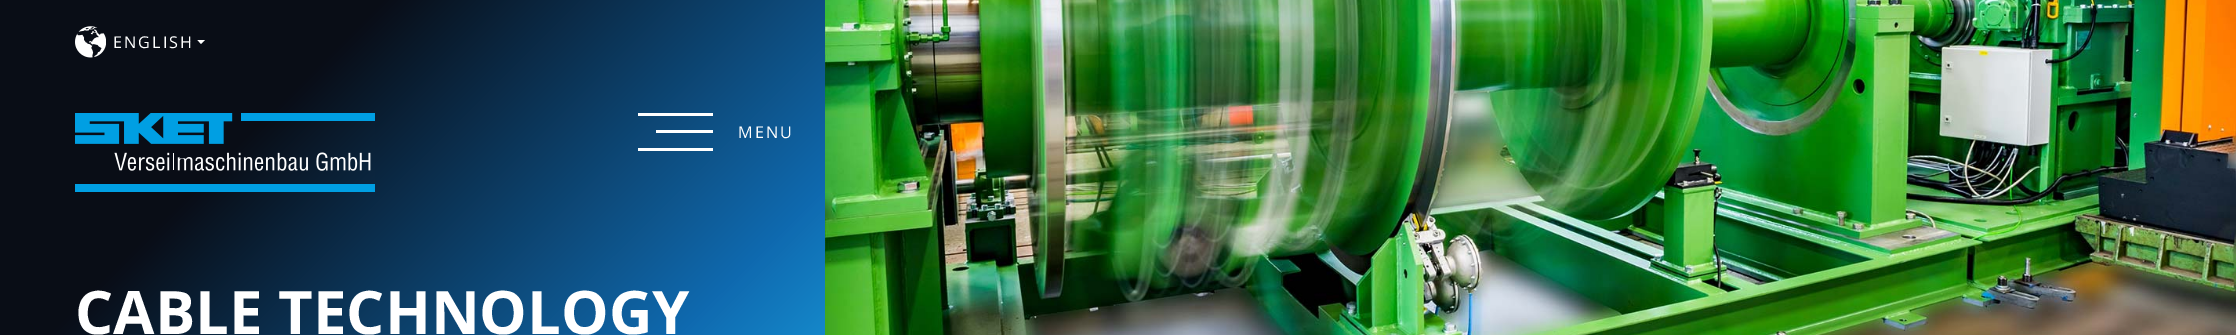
%!PS
<< /PageSize [2236 335] >> setpagedevice
/rgb { 3 { 255 div 3 1 roll } repeat setrgbcolor } def
/font { [ exch dup neg 0 0 3 -1 roll 0 0 ] selectfont } def
/text { moveto show } def
/picture { 5 dict begin { /h /w /y /x /name } { exch def } forall
  gsave x y translate w h scale
  w h 8 [w 0 0 h 0 0] name (r) file false 3 colorimage grestore end } def
0 335 translate 1 -1 scale
4 setmiterlimit
255 255 255 rgb
0 0 2236 335 rectfill
gsave 0 0 moveto 825 0 rlineto 0 335 rlineto -825 0 rlineto closepath clip newpath
<< /ShadingType 2 /ColorSpace /DeviceRGB /Coords [94 -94 731 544] /Extend [true true] /Function << /FunctionType 3 /Domain [0 1] /Functions [<< /FunctionType 2 /Domain [0 1] /C0 [0.035 0.051 0.086] /C1 [0.035 0.051 0.086] /N 1 >> << /FunctionType 2 /Domain [0 1] /C0 [0.035 0.051 0.086] /C1 [0.059 0.42 0.694] /N 1 >> << /FunctionType 2 /Domain [0 1] /C0 [0.059 0.42 0.694] /C1 [0.102 0.627 0.875] /N 1 >>] /Bounds [0.3 0.8] /Encode [0 1 0 1 0 1] >> >> shfill grestore
(img_01.rgb) 75 26 31 32 picture
197.5 40 moveto 7.5 0 rlineto -4 4 rlineto closepath fill
(img_02.rgb) 75 113 300 79 picture
638 113 75 3 rectfill
656 130 57 3 rectfill
638 148 75 3 rectfill
(img_03.rgb) 825 0 1411 335 picture
/OpenSans-Regular 16.25 font
113 48 moveto 2 0 (ENGLISH) ashow
738 138 moveto 2 0 (MENU) ashow
/OpenSans-Bold 60 font
(CABLE TECHNOLOGY) 75 334 text
showpage
